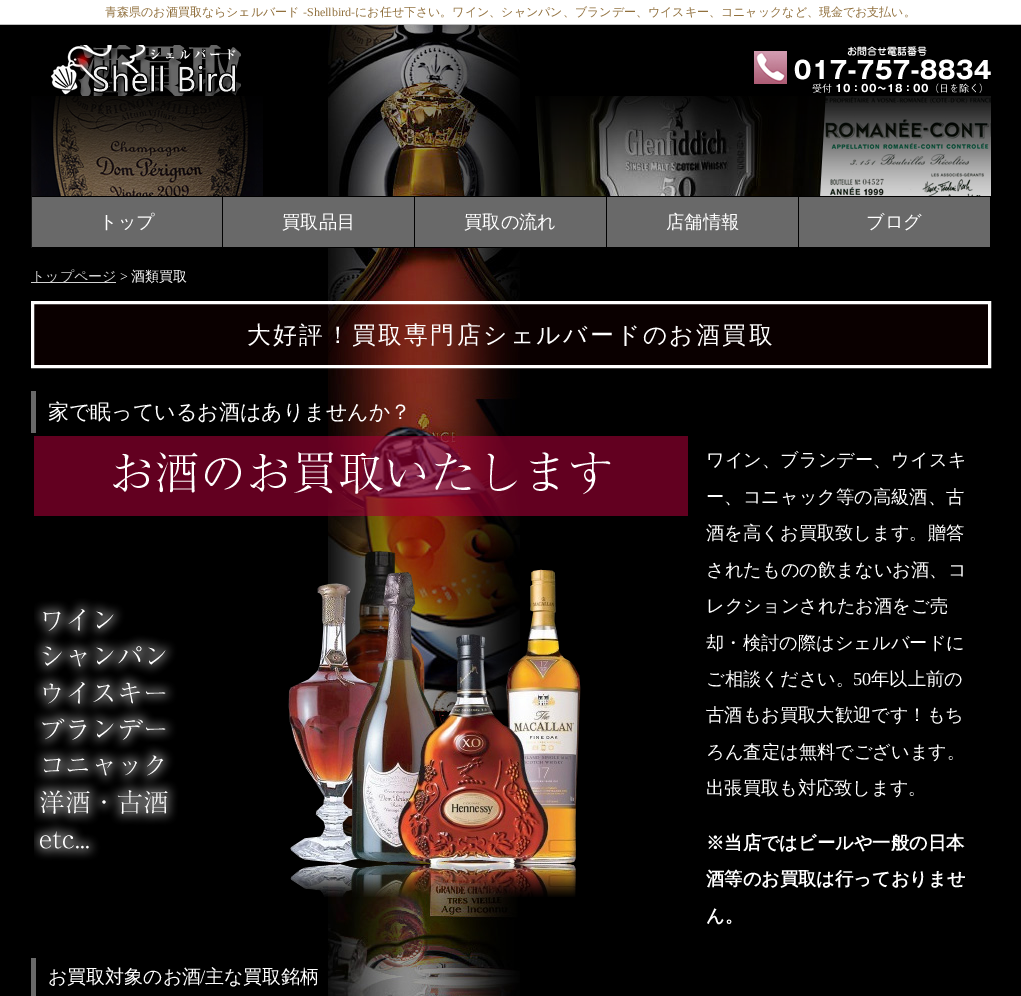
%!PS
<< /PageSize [1021 996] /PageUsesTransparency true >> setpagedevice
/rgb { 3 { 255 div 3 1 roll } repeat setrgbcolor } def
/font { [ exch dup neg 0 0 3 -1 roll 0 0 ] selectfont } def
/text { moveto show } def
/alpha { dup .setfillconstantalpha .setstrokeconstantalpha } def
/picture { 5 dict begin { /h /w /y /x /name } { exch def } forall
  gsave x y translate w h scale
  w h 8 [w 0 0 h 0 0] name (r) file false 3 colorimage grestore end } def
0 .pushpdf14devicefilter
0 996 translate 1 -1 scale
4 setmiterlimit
0 0 0 rgb
0 0 1021 996 rectfill
(img_01.rgb) 328 25 192 971 picture
255 255 255 rgb
0 0 1021 24 rectfill
192 192 192 rgb
0 24 1021 1 rectfill
(img_02.rgb) 50 45 191 51 picture
(img_03.rgb) 754 46 237 47 picture
(img_04.rgb) 31 96 960 100 picture
105 105 105 rgb
32 197 190 50 rectfill
21 21 21 rgb
31 196 1 52 rectfill
105 105 105 rgb
223 197 191 50 rectfill
0 0 0 rgb
414 196 1 52 rectfill
328 196 86 1 rectfill
328 247 86 1 rectfill
105 105 105 rgb
415 197 191 50 rectfill
0 0 0 rgb
415 196 105 1 rectfill
415 247 89 1 rectfill
105 105 105 rgb
607 197 191 50 rectfill
799 197 191 50 rectfill
211 211 211 rgb
31 282 85 1 rectfill
0.1 alpha
102 0 0 rgb
32.5 302.5 moveto 957 0 rlineto 0 64 rlineto -957 0 rlineto closepath fill
1 alpha
255 255 255 rgb
3 setlinewidth
32.5 302.5 moveto 957 0 rlineto 0 64 rlineto -957 0 rlineto closepath stroke
105 105 105 rgb
31 391 5 42 rectfill
(img_05.rgb) 34 436 654 461 picture
31 958 5 38 rectfill
/WenQuanYiZenHei-Medium 12 font
145 112 61 rgb
(青森県のお酒買取ならシェルバード) 105 16 text
/LiberationSerif-Regular 12 font
(-Shellbird-) 303 16 text
/WenQuanYiZenHei-Medium 12 font
(にお任せ下さい。ワイン、シャンパン、ブランデー、ウイスキー、コニャックなど、現金でお支払い。) 355 16 text
/WenQuanYiZenHei-Medium 18.25 font
255 255 255 rgb
(トップ) 99 228 text
(買取品目) 282 228 text
(買取の流れ) 464 228 text
(店舗情報) 666 228 text
(ブログ) 866 228 text
/WenQuanYiZenHei-Medium 14 font
211 211 211 rgb
(トップページ) 31 281 text
/LiberationSerif-Regular 14 font
255 255 255 rgb
(>) 120 281 text
/WenQuanYiZenHei-Medium 14 font
(酒類買取) 131 281 text
/WenQuanYiZenHei-Medium 23.8 font
247 343 moveto 2.4 0 (大好評！買取専門店シェルバードのお酒買取) ashow
/WenQuanYiZenHei-Medium 21 font
(家で眠っているお酒はありませんか？) 48 419 text
/WenQuanYiZenHei-Medium 18.25 font
(ワイン、ブランデー、ウイスキ) 706 466 text
(ー、コニャック等の高級酒、古) 706 503 text
(酒を高くお買取致します。贈答) 706 539 text
(されたものの飲まないお酒、コ) 706 576 text
(レクションされたお酒をご売) 706 612 text
(却・検討の際はシェルバードに) 706 649 text
(ご相談ください。) 706 685 text
/LiberationSerif-Regular 18.25 font
(50) 853 685 text
/WenQuanYiZenHei-Medium 18.25 font
(年以上前の) 871 685 text
(古酒もお買取大歓迎です！もち) 706 721 text
(ろん査定は無料でございます。) 706 758 text
(出張買取も対応致します。) 706 794 text
/WenQuanYiZenHei-Bold 18.25 font
(※当店ではビールや一般の日本) 706 849 text
(酒等のお買取は行っておりませ) 706 885 text
(ん。) 706 922 text
/WenQuanYiZenHei-Medium 19 font
(お買取対象のお酒) 48 983 text
/LiberationSerif-Regular 19 font
(/) 200 983 text
/WenQuanYiZenHei-Medium 19 font
(主な買取銘柄) 205 983 text
.poppdf14devicefilter showpage
